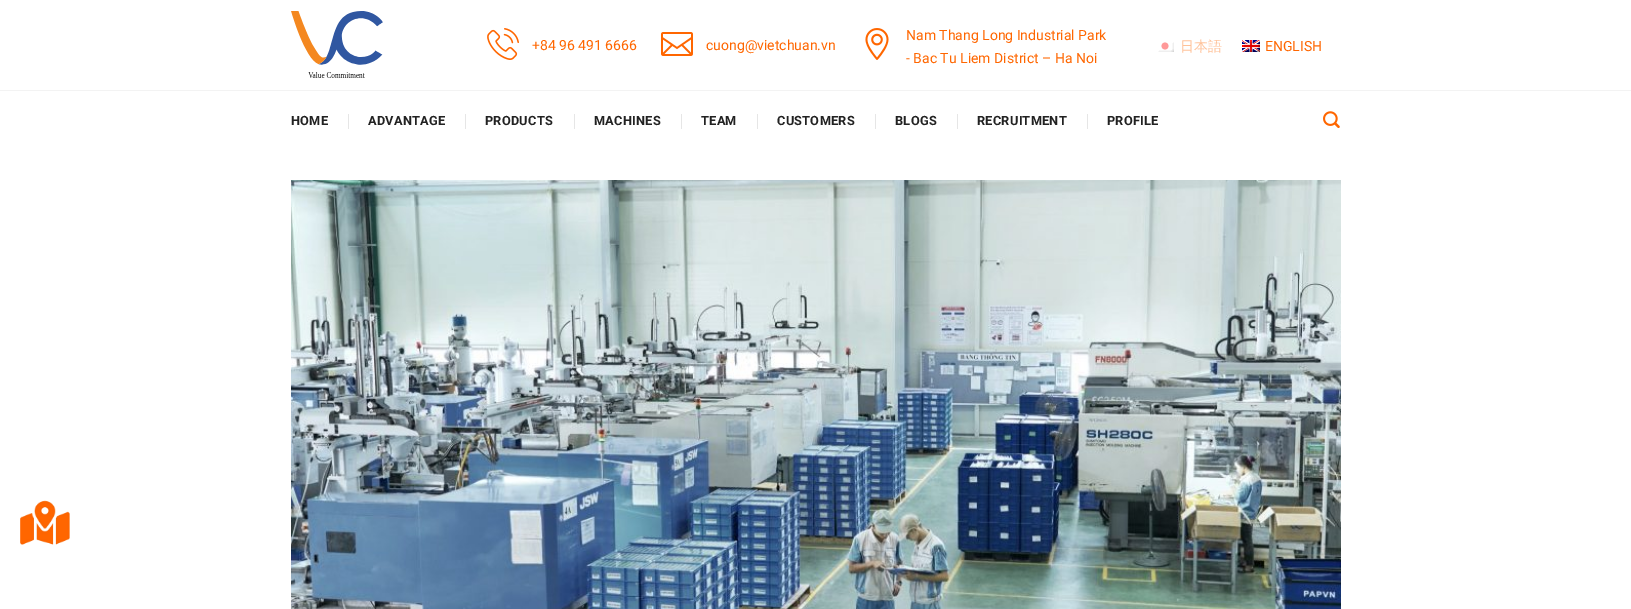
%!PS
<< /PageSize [1631 609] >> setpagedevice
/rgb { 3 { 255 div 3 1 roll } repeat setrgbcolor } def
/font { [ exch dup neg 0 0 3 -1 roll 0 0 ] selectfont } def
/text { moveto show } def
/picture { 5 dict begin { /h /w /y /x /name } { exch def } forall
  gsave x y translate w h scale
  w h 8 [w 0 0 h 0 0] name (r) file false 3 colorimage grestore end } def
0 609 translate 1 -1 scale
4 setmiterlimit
255 255 255 rgb
0 0 1631 609 rectfill
243 243 243 rgb
0 90 1631 1 rectfill
(img_01.rgb) 291 11 92 67 picture
(img_02.rgb) 487 28 32 32 picture
(img_03.rgb) 661 32 32 24 picture
(img_04.rgb) 865 28 24 32 picture
(img_05.rgb) 1158 42 16 10 picture
(img_06.rgb) 1242 40 18 12 picture
230 230 230 rgb
348 114 1 15 rectfill
465 114 1 15 rectfill
574 114 1 15 rectfill
681 114 1 15 rectfill
757 114 1 15 rectfill
875 114 1 15 rectfill
957 114 1 15 rectfill
1087 114 1 15 rectfill
(img_07.rgb) 1323 111 17 17 picture
(img_08.rgb) 291 180 1050 429 picture
(img_09.rgb) 20 500 50 45 picture
/Roboto-Regular 14 font
255 102 0 rgb
(+84 96 491 6666) 532 50 text
(cuong@vietchuan.vn) 706 50 text
(Nam Thang Long Industrial Park) 906 40 text
(- Bac Tu Liem District – Ha Noi) 906 63 text
/WenQuanYiZenHei-Medium 14 font
255 194 153 rgb
(日本語) 1180 51 text
/Roboto-Regular 14 font
255 102 0 rgb
(ENGLISH) 1265 51 text
/Roboto-Bold 12.75 font
34 34 34 rgb
291 125 moveto 0.25 0 (HOME) ashow
368 125 moveto 0.25 0 (ADVANTAGE) ashow
485 125 moveto 0.25 0 (PRODUCTS) ashow
594 125 moveto 0.25 0 (MACHINES) ashow
701 125 moveto 0.25 0 (TEAM) ashow
777 125 moveto 0.25 0 (CUSTOMERS) ashow
895 125 moveto 0.25 0 (BLOGS) ashow
977 125 moveto 0.25 0 (RECRUITMENT) ashow
1107 125 moveto 0.25 0 (PROFILE) ashow
showpage
